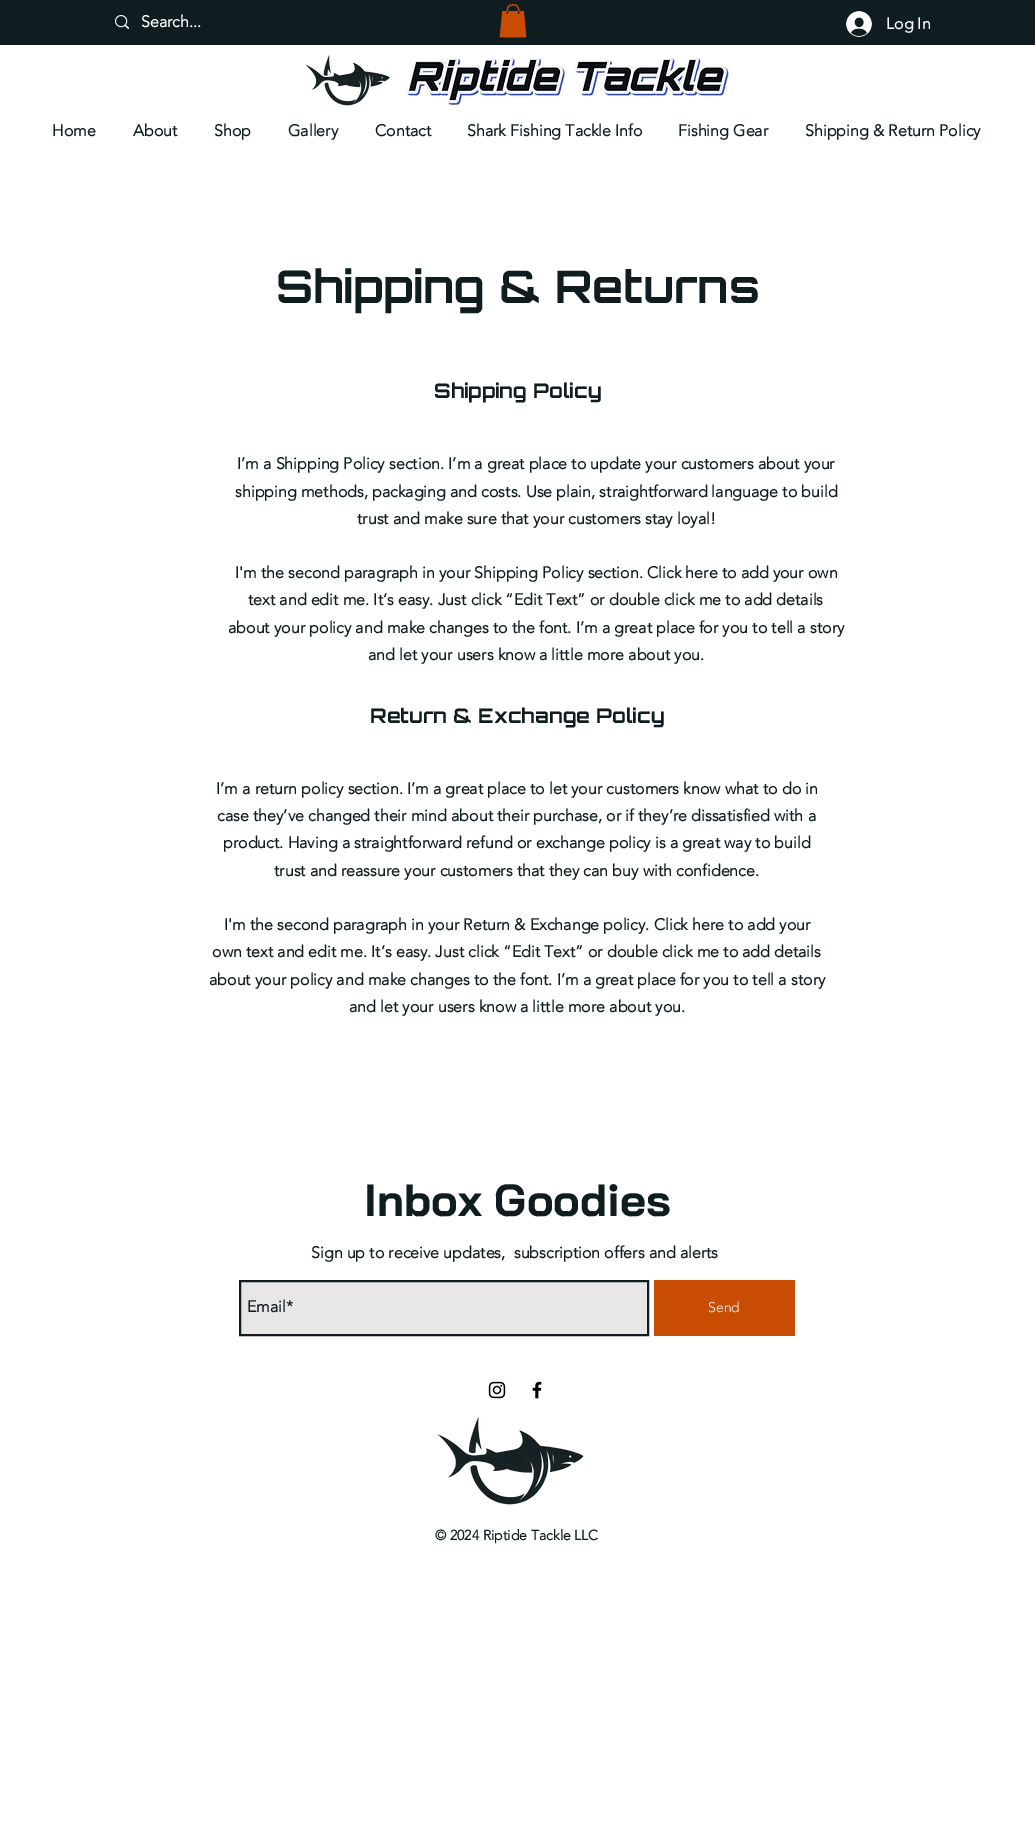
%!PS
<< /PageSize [1035 1826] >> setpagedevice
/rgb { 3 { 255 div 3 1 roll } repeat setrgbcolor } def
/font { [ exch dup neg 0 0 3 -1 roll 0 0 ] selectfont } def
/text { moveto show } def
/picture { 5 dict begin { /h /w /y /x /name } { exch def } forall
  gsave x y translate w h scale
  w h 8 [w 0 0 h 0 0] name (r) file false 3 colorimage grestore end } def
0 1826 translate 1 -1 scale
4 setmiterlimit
255 255 255 rgb
0 0 1035 1826 rectfill
16 29 32 rgb
0 0 1035 45 rectfill
(img_01.rgb) 115 15 14 14 picture
(img_02.rgb) 499 4 28 34 picture
(img_03.rgb) 846 11 26 26 picture
(img_04.rgb) 305 54 85 52 picture
(img_05.rgb) 407 58 322 47 picture
232 230 230 rgb
240 1281 moveto 408 0 rlineto 0 54 rlineto -408 0 rlineto closepath gsave fill grestore
16 29 32 rgb
2 setlinewidth
stroke
201 76 3 rgb
654 1280 141 56 rectfill
(img_06.rgb) 488 1381 18 18 picture
(img_07.rgb) 532 1381 10 18 picture
(img_08.rgb) 437 1416 147 89 picture
/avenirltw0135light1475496-Bold 16 font
255 255 255 rgb
(Search...) 141 27 text
(Log In) 886 29 text
16 29 32 rgb
(Home) 52 136 text
(About) 133 136 text
(Shop) 214 136 text
(Gallery) 288 136 text
(Contact) 375 136 text
(Shark Fishing Tackle Info) 467 136 text
(Fishing Gear) 678 136 text
(Shipping & Return Policy) 805 136 text
/Orbitron-Bold 45 font
(Shipping & Returns) 276 303 text
/Orbitron-Bold 20 font
(Shipping Policy) 434 398 text
/avenirltw0135light1475496-Bold 16 font
(I’m a Shipping Policy section. I’m a great place to update your customers about your) 237 469 text
(shipping methods, packaging and costs. Use plain, straightforward language to build) 235 497 text
(trust and make sure that your customers stay loyal!) 357 524 text
(I'm the second paragraph in your Shipping Policy section. Click here to add your own) 235 578 text
(text and edit me. It’s easy. Just click “Edit Text” or double click me to add details) 248 605 text
(about your policy and make changes to the font. I’m a great place for you to tell a story) 228 633 text
(and let your users know a little more about you.) 368 660 text
/Orbitron-Bold 20 font
(Return & Exchange Policy) 370 723 text
/avenirltw0135light1475496-Bold 16 font
(I’m a return policy section. I’m a great place to let your customers know what to do in) 216 794 text
(case they’ve changed their mind about their purchase, or if they’re dissatisfied with a) 217 821 text
(product. Having a straightforward refund or exchange policy is a great way to build) 223 848 text
(trust and reassure your customers that they can buy with confidence.) 274 876 text
(I'm the second paragraph in your Return & Exchange policy. Click here to add your) 224 930 text
(own text and edit me. It’s easy. Just click “Edit Text” or double click me to add details) 212 957 text
(about your policy and make changes to the font. I’m a great place for you to tell a story) 209 985 text
(and let your users know a little more about you.) 349 1012 text
/BaiJamjuree-Bold 45 font
(Inbox Goodies) 364 1216 text
/avenirltw0135light1475496-Bold 16 font
(Sign up to receive updates,  subscription offers and alerts) 311 1258 text
(Email*) 247 1312 text
/avenirltw0135light1475496-Light 14 font
255 255 255 rgb
(Send) 708 1312 text
/avenirltw0135light1475496-Bold 14 font
16 29 32 rgb
(© 2024 Riptide Tackle LLC) 435 1540 text
showpage
